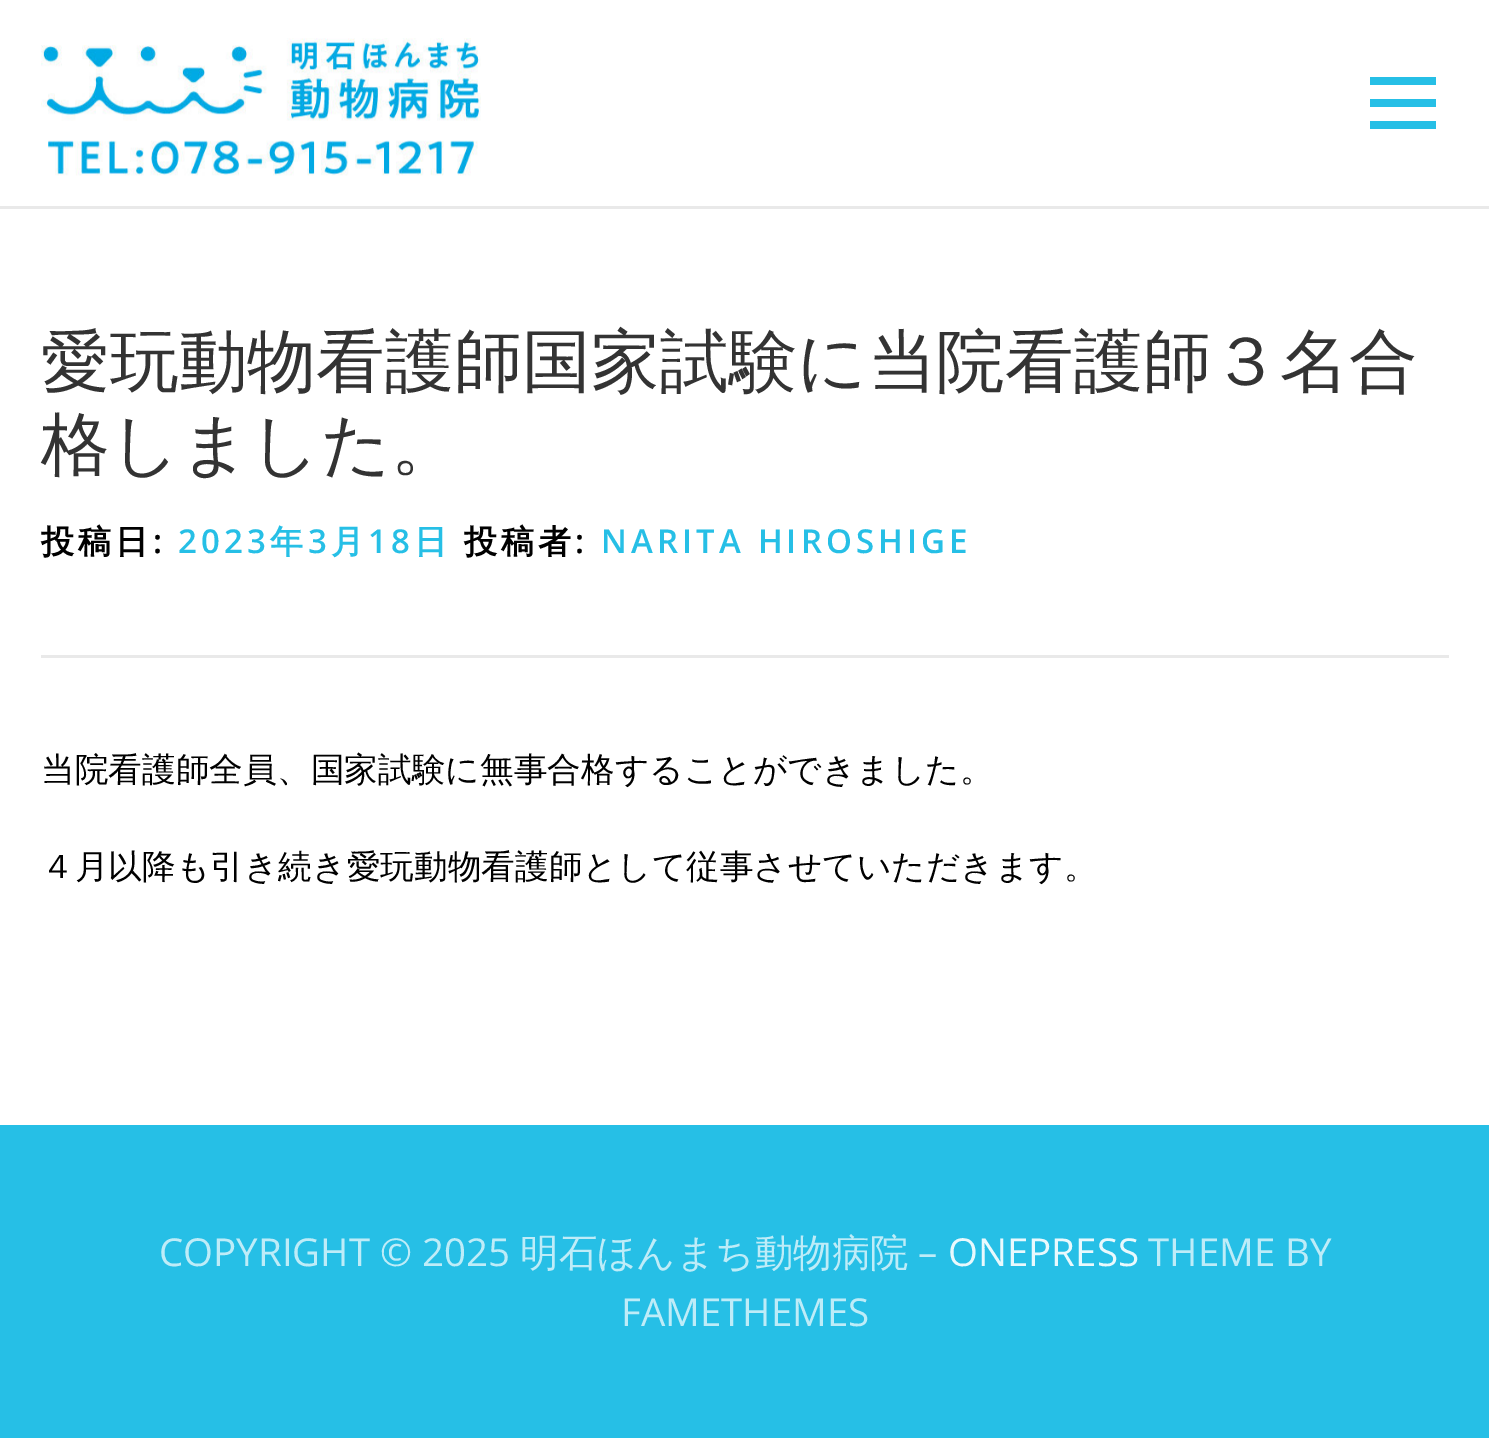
%!PS
<< /PageSize [1489 1444] >> setpagedevice
/rgb { 3 { 255 div 3 1 roll } repeat setrgbcolor } def
/font { [ exch dup neg 0 0 3 -1 roll 0 0 ] selectfont } def
/text { moveto show } def
/picture { 5 dict begin { /h /w /y /x /name } { exch def } forall
  gsave x y translate w h scale
  w h 8 [w 0 0 h 0 0] name (r) file false 3 colorimage grestore end } def
0 1444 translate 1 -1 scale
4 setmiterlimit
255 255 255 rgb
0 0 1489 1444 rectfill
(img_01.rgb) 41 38 440 138 picture
38 191 230 rgb
1370 99 66 8 rectfill
1370 77 66 8 rectfill
1370 121 66 8 rectfill
233 233 233 rgb
0 206 1489 3 rectfill
41 655 1408 3 rectfill
38 191 230 rgb
0 1125 1489 313 rectfill
/WenQuanYiZenHei-Medium 68.75 font
51 51 51 rgb
(愛玩動物看護師国家試験に当院看護師３名合) 41 385 text
(格しました。) 41 468 text
/WenQuanYiZenHei-Bold 33 font
0 0 0 rgb
41 553 moveto 4.1 0 (投稿日) ashow
/OpenSans-SemiBold 33 font
153 553 moveto 4.1 0 (:) ashow
38 191 230 rgb
178 553 moveto 4.1 0 (2023) ashow
/WenQuanYiZenHei-Bold 33 font
270 553 moveto 4.1 0 (年) ashow
/OpenSans-SemiBold 33 font
308 553 moveto 4.1 0 (3) ashow
/WenQuanYiZenHei-Bold 33 font
331 553 moveto 4.1 0 (月) ashow
/OpenSans-SemiBold 33 font
368 553 moveto 4.1 0 (18) ashow
/WenQuanYiZenHei-Bold 33 font
414 553 moveto 4.1 0 (日) ashow
0 0 0 rgb
464 553 moveto 4.1 0 (投稿者) ashow
/OpenSans-SemiBold 33 font
575 553 moveto 4.1 0 (:) ashow
38 191 230 rgb
601 553 moveto 4.1 0 (NARITA HIROSHIGE) ashow
/WenQuanYiZenHei-Medium 33.7 font
0 0 0 rgb
(当院看護師全員、国家試験に無事合格することができました。) 41 781 text
(４月以降も引き続き愛玩動物看護師として従事させていただきます。) 41 878 text
/OpenSans-Regular 38.5 font
190 236 248 rgb
(COPYRIGHT © 2025) 159 1266 text
/WenQuanYiZenHei-Medium 38.5 font
(明石ほんまち動物病院) 520 1266 text
/OpenSans-Regular 38.5 font
(–) 918 1266 text
233 249 253 rgb
(ONEPRESS) 948 1266 text
190 236 248 rgb
(THEME BY) 1148 1266 text
(FAMETHEMES) 621 1326 text
showpage
